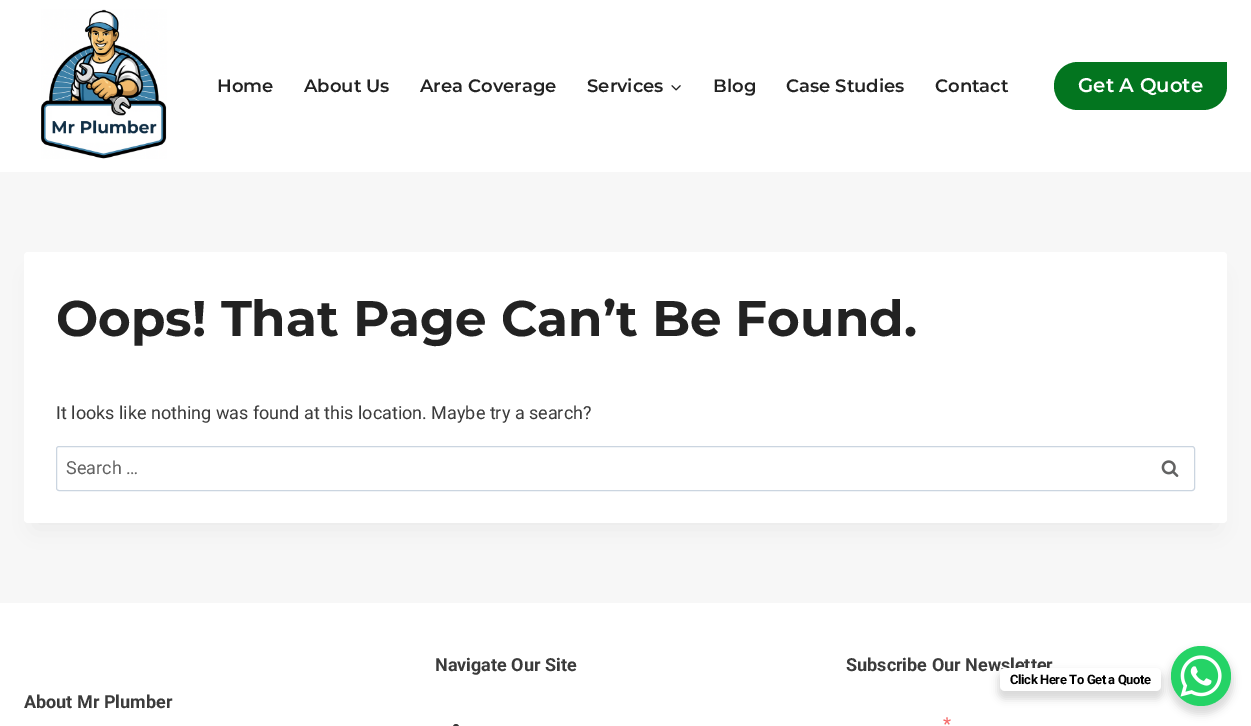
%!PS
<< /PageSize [1251 726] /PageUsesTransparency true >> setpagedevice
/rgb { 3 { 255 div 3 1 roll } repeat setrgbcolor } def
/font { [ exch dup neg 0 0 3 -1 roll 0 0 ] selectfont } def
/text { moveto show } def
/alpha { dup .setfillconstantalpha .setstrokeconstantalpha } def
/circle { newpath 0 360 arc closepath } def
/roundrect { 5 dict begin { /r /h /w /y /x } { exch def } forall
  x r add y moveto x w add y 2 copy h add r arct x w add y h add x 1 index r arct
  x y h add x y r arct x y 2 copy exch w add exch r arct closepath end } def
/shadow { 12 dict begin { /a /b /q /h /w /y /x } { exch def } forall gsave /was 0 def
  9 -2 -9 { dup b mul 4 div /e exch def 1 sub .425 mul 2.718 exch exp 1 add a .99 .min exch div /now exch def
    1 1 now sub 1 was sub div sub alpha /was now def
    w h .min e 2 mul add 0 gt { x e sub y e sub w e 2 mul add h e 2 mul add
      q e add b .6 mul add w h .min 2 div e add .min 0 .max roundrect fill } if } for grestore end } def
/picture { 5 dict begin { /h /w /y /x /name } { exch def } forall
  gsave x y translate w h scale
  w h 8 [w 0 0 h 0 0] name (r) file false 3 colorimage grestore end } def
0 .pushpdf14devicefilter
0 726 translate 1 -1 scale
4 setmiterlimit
247 247 247 rgb
0 0 1251 726 rectfill
255 255 255 rgb
0 0 1251 172 rectfill
(img_01.rgb) 41 9 126 150 picture
(img_02.rgb) 671 85 10 6 picture
3 117 31 rgb
1078 62 moveto 149 0 rlineto 0 24 rlineto 0 13.5 -10.5 24 -24 24 rcurveto -125 0 rlineto -13.5 0 -24 -10.5 -24 -24 rcurveto 0 -13.5 10.5 -24 24 -24 rcurveto closepath fill
0 0 0 rgb
34 277 1183 251 0 12.5 0.05 shadow
255 255 255 rgb
24 252 1203 271 4 roundrect fill
203 213 224 rgb
56.5 446.5 1138 44 2.5 roundrect stroke
(img_03.rgb) 1161 460 18 17 picture
255 255 255 rgb
0 603 1251 123 rectfill
59 59 59 rgb
453 724 6 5 3 roundrect fill
0 0 0 rgb
1169 650 64 64 32 4 0.15 shadow
37 211 102 rgb
1201 676 30 circle fill
0 0 0 rgb
998 672 165 27 7 4 0.15 shadow
(img_04.rgb) 1180 655 42 42 picture
/Montserrat-SemiBold 18 font
34 34 34 rgb
(Home) 217 92 text
(About Us) 304 92 text
(Area Coverage) 420 92 text
(Services) 587 92 text
(Blog) 713 92 text
(Case Studies) 786 92 text
(Contact) 935 92 text
/Montserrat-SemiBold 19.75 font
255 255 255 rgb
(Get A Quote) 1078 92 text
/Montserrat-Bold 50 font
34 34 34 rgb
(Oops! That Page Can’t Be Found.) 56 336 text
/Roboto-Regular 18 font
59 59 59 rgb
(It looks like nothing was found at this location. Maybe try a search?) 56 419 text
98 98 98 rgb
(Search …) 66 474 text
/Roboto-Bold 18 font
59 59 59 rgb
(About Mr Plumber) 24 708 text
(Navigate Our Site) 435 671 text
(Subscribe Our Newsletter) 846 671 text
/Roboto-Medium 18 font
245 108 108 rgb
(*) 943 730 text
255 255 255 rgb
1000 668 161 23 5 roundrect fill
/Roboto-Bold 13 font
0 0 0 rgb
1010 684 moveto -0.4 0 (Click Here To Get a Quote) ashow
.poppdf14devicefilter showpage
